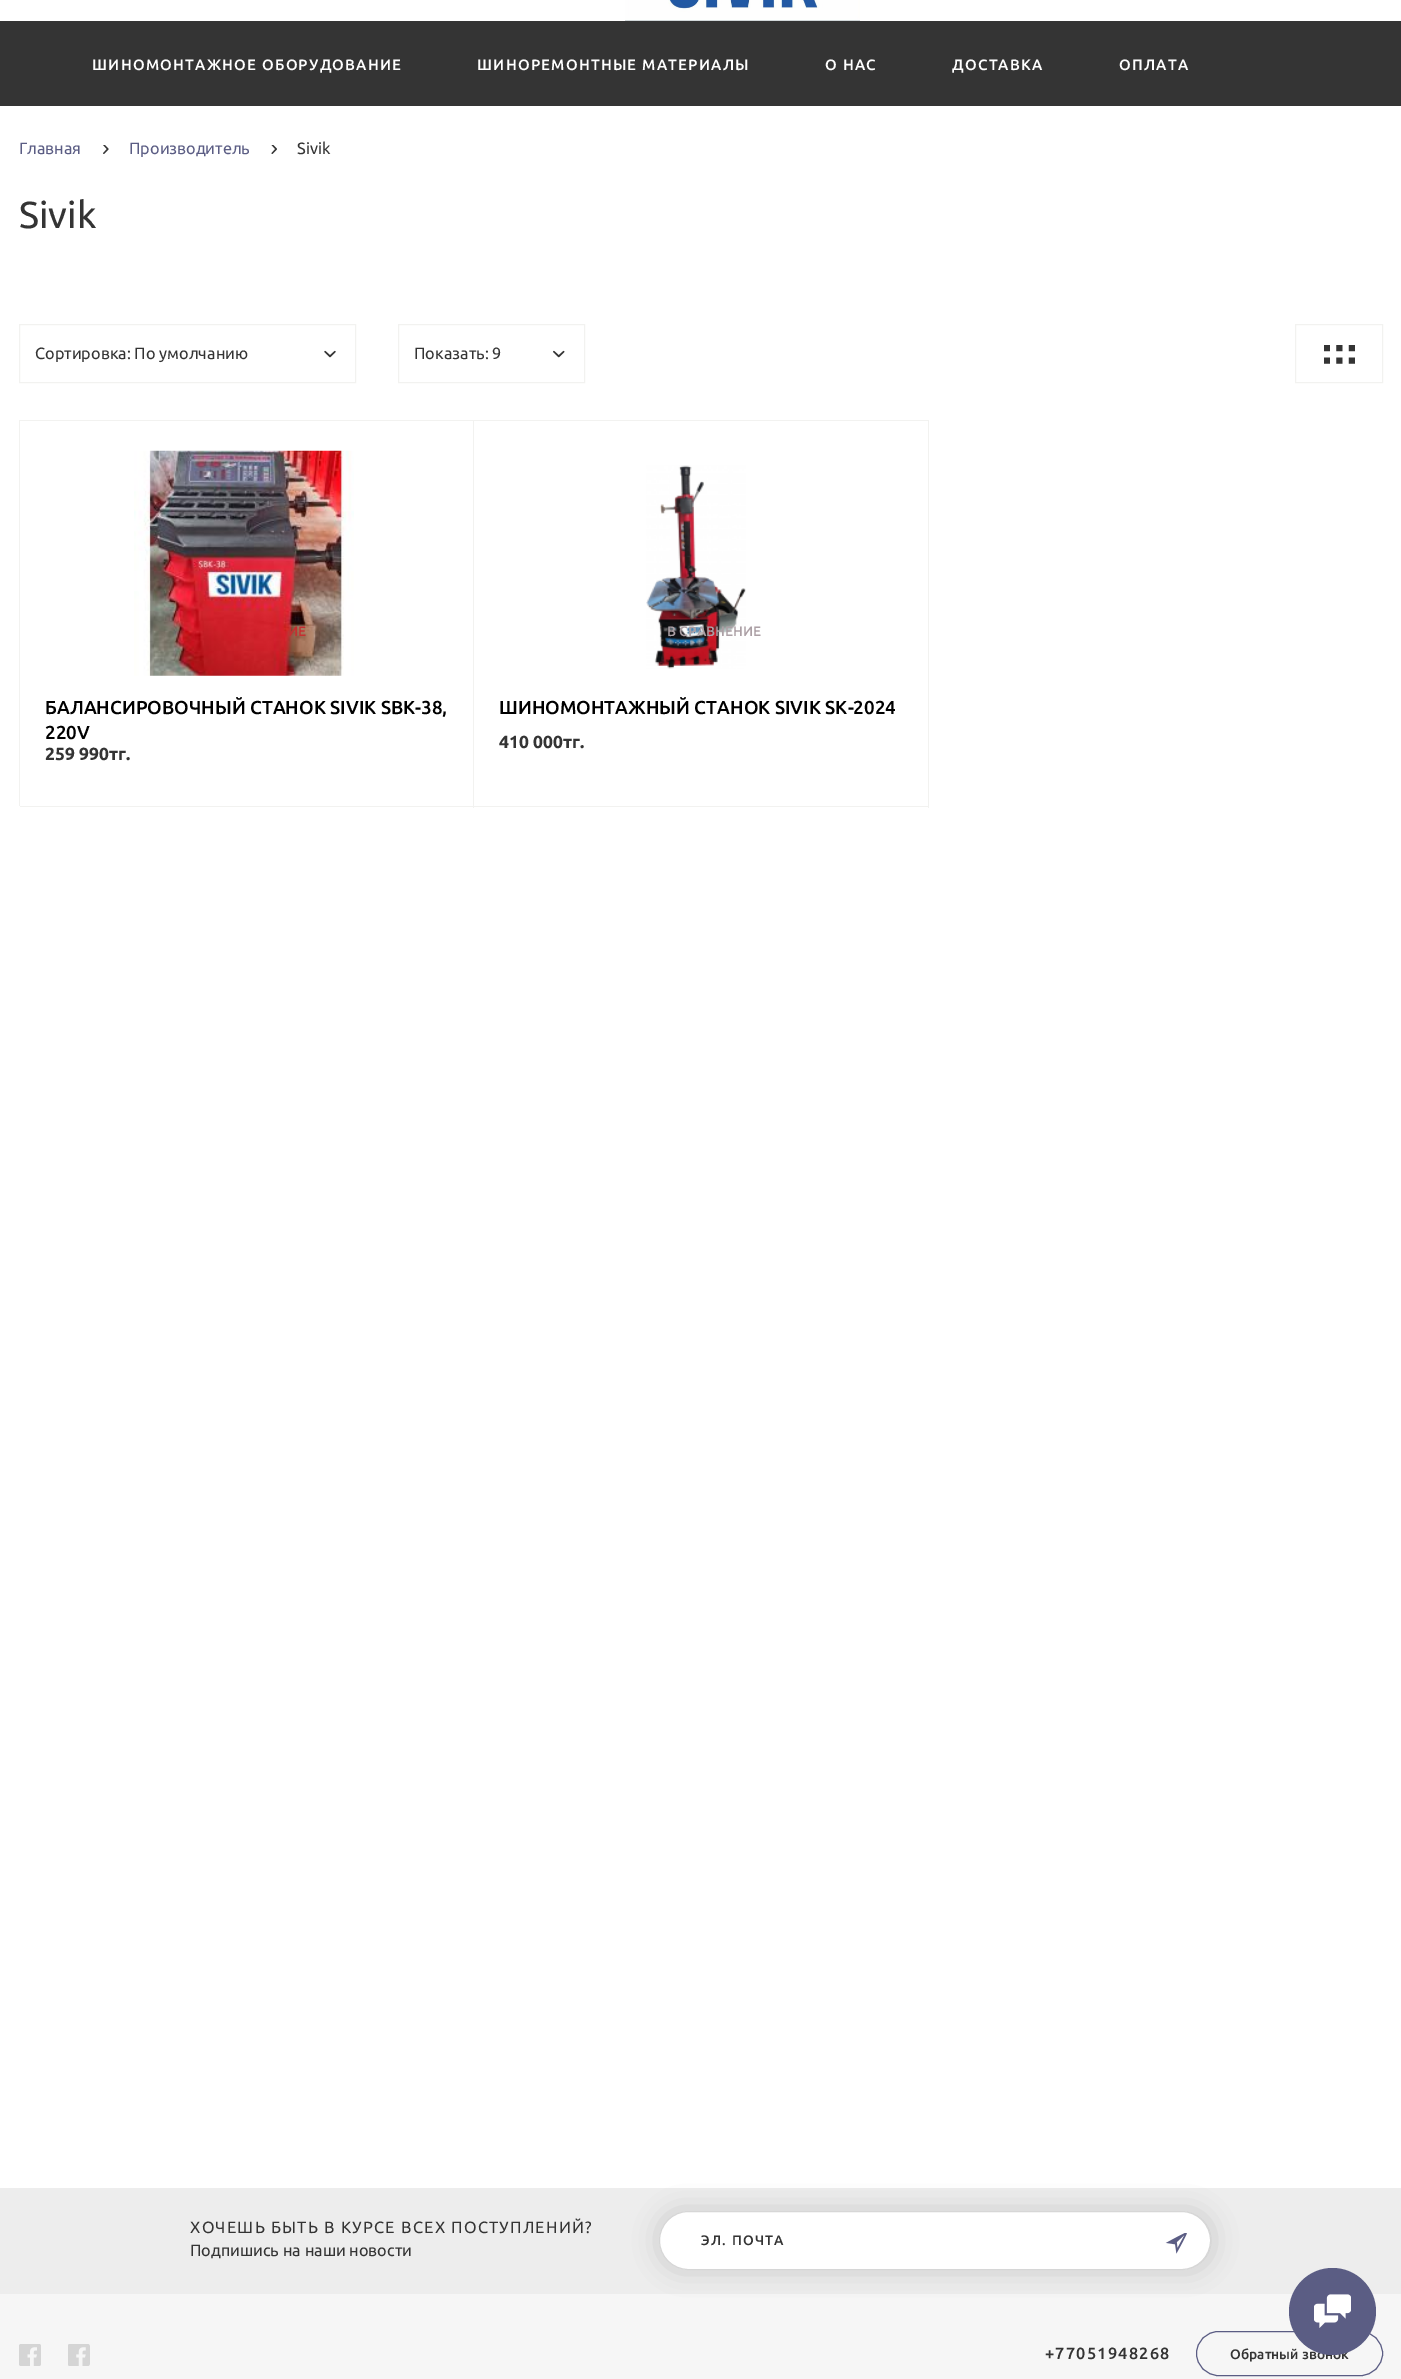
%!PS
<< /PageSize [1401 2379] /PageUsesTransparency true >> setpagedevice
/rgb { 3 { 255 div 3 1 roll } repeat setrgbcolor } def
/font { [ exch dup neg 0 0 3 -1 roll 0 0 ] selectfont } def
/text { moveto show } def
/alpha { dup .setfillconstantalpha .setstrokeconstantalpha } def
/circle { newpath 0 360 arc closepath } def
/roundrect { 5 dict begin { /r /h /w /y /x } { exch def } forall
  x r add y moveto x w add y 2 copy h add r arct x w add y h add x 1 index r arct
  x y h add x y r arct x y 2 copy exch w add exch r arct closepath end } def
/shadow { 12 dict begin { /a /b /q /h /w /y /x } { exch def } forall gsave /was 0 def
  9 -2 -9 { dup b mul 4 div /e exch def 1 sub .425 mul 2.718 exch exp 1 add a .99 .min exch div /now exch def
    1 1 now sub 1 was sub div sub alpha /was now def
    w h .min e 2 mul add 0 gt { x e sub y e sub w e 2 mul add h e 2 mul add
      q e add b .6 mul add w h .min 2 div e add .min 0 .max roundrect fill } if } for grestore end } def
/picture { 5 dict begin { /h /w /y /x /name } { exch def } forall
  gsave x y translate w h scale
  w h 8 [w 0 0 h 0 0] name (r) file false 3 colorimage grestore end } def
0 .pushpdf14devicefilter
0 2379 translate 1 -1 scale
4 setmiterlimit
255 255 255 rgb
0 0 1401 2379 rectfill
(img_01.rgb) 625 0 235 21 picture
52 52 52 rgb
0 21 1401 85 rectfill
(img_02.rgb) 103 145 6 9 picture
(img_03.rgb) 271 145 6 9 picture
(img_04.rgb) 324 350 12 8 picture
242 242 240 rgb
19.5 324.5 336 58 rectstroke
(img_05.rgb) 553 350 12 8 picture
398.5 324.5 186 58 rectstroke
1295.5 324.5 87 58 rectstroke
(img_06.rgb) 1324 345 31 19 picture
19 420 1 386 rectfill
20 420 909 1 rectfill
473 420 1 388 rectfill
20 806 454 1 rectfill
(img_07.rgb) 134 450 220 226 picture
928 420 1 388 rectfill
474 806 455 1 rectfill
(img_08.rgb) 646 465 100 204 picture
237 237 237 rgb
0 2188 1401 106 rectfill
246 246 246 rgb
0 2294 1401 85 rectfill
0 0 0 rgb
663 2215 545 51 25.5 14 0.2 shadow
255 255 255 rgb
659.5 2211.5 551 58 29 roundrect gsave fill grestore
214 214 214 rgb
stroke
(img_09.rgb) 1165 2233 22 21 picture
(img_10.rgb) 19 2344 22 22 picture
(img_11.rgb) 68 2344 22 22 picture
91 93 132 rgb
1196.5 2331.5 186 44 22 roundrect stroke
/Ubuntu-Medium 15 font
255 255 255 rgb
92 70 moveto 1.25 0 (ШИНОМОНТАЖНОЕ ОБОРУДОВАНИЕ) ashow
477 70 moveto 1.25 0 (ШИНОРЕМОНТНЫЕ МАТЕРИАЛЫ) ashow
825 70 moveto 1.25 0 (О НАС) ashow
952 70 moveto 1.25 0 (ДОСТАВКА) ashow
1119 70 moveto 1.25 0 (ОПЛАТА) ashow
/Ubuntu-Regular 16.25 font
91 93 132 rgb
(Главная) 19 154 text
(Производитель) 129 154 text
52 52 52 rgb
(Sivik) 297 154 text
/Ubuntu-Regular 37.5 font
(Sivik) 19 228 text
/Ubuntu-Regular 16.25 font
(Сортировка: По умолчанию) 35 359 text
(Показать: 9) 414 359 text
/Ubuntu-Medium 13.75 font
197 47 49 rgb
(ИЕ) 288 636 text
/Ubuntu-Medium 18.75 font
0 0 0 rgb
(БАЛАНСИРОВОЧНЫЙ СТАНОК SIVIK SBK-38,) 45 714 text
(220V) 45 739 text
/Ubuntu-Bold 17.5 font
52 52 52 rgb
(259 990тг.) 45 760 text
/Ubuntu-Medium 13.75 font
172 160 165 rgb
(В СРАВНЕНИЕ) 667 636 text
/Ubuntu-Medium 18.75 font
0 0 0 rgb
(ШИНОМОНТАЖНЫЙ СТАНОК SIVIK SK-2024) 499 714 text
/Ubuntu-Bold 17.5 font
52 52 52 rgb
(410 000тг.) 499 748 text
/Ubuntu-Regular 16.25 font
190 2233 moveto 1.25 0 (ХОЧЕШЬ БЫТЬ В КУРСЕ ВСЕХ ПОСТУПЛЕНИЙ?) ashow
(Подпишись на наши новости) 190 2256 text
/Ubuntu-Medium 13.75 font
701 2245 moveto 1.25 0 (ЭЛ. ПОЧТА) ashow
/Ubuntu-Medium 16.25 font
1045 2359 moveto 1.25 0 (+77051948268) ashow
/Ubuntu-Medium 13.75 font
(Обратный звонок) 1230 2359 text
91 93 132 rgb
1332.5 2311.5 43.5 circle fill
(img_12.rgb) 1314 2294 37 34 picture
.poppdf14devicefilter showpage
